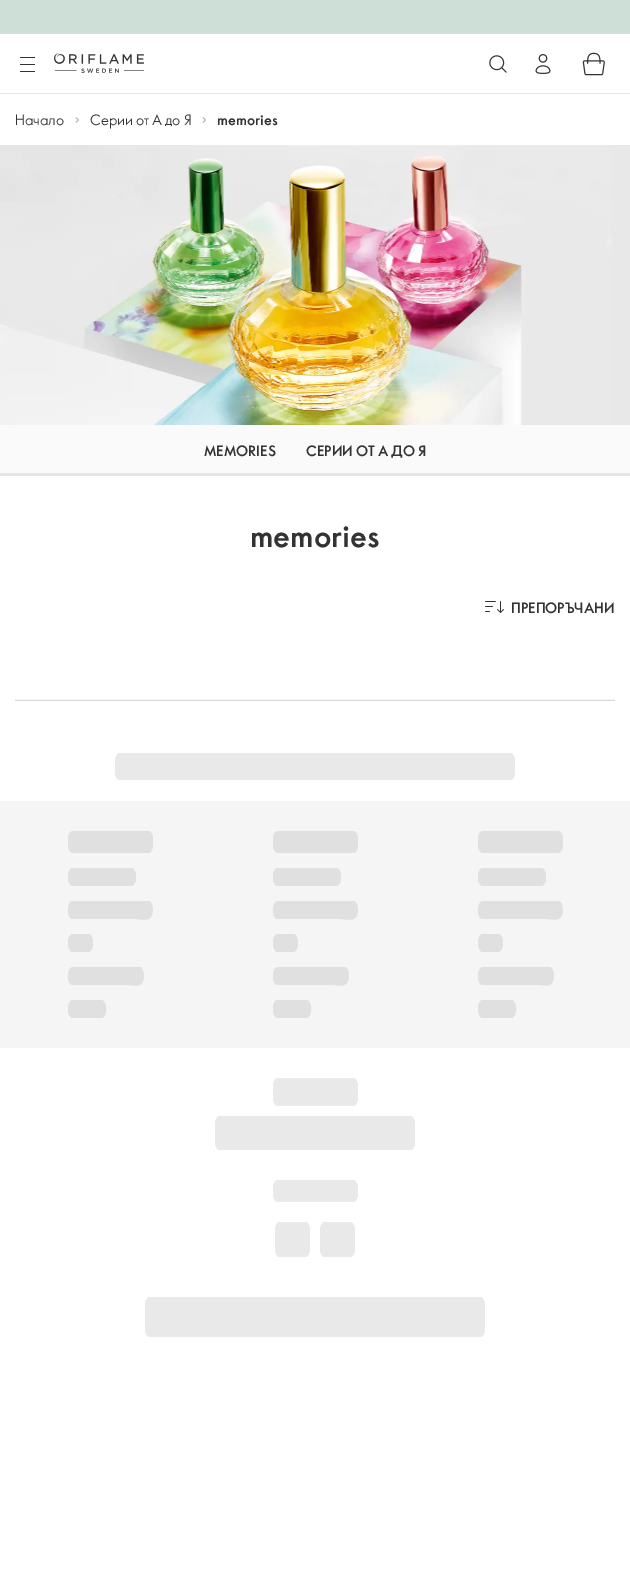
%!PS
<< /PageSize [630 1587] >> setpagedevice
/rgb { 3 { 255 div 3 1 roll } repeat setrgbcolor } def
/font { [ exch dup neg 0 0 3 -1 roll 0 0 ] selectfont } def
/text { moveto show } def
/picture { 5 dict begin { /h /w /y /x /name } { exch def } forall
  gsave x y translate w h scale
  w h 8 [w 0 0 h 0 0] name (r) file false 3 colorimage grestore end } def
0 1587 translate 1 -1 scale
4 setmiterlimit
255 255 255 rgb
0 0 630 1587 rectfill
229 229 229 rgb
0 93 630 1 rectfill
206 223 215 rgb
0 0 630 34 rectfill
51 51 51 rgb
20 57 15 1 rectfill
20 64 15 1 rectfill
20 71 15 1 rectfill
(img_01.rgb) 54 53 90 20 picture
(img_02.rgb) 489 55 18 18 picture
(img_03.rgb) 535 54 16 20 picture
(img_04.rgb) 582 52 23 24 picture
(img_05.rgb) 75 117 4 6 picture
(img_05.rgb) 202 117 4 6 picture
(img_06.rgb) 0 145 630 280 picture
250 250 250 rgb
0 425 630 48 rectfill
229 229 229 rgb
0 473 630 3 rectfill
(img_07.rgb) 485 601 19 12 picture
245 245 245 rgb
15 699 600 1 rectfill
216 216 216 rgb
15 700 600 1 rectfill
233 233 233 rgb
120 753 moveto 390 0 rlineto 3 0 5 4 5 8 rcurveto 0 11 rlineto 0 4 -2 8 -5 8 rcurveto -390 0 rlineto -3 0 -5 -4 -5 -8 rcurveto 0 -11 rlineto 0 -4 2 -8 5 -8 rcurveto closepath fill
245 245 245 rgb
0 801 630 247 rectfill
224 224 224 rgb
73 831 moveto 75 0 rlineto 3 0 5 4 5 8 rcurveto 0 6 rlineto 0 4 -2 8 -5 8 rcurveto -75 0 rlineto -3 0 -5 -4 -5 -8 rcurveto 0 -6 rlineto 0 -4 2 -8 5 -8 rcurveto closepath fill
73 868 moveto 58 0 rlineto 3 0 5 4 5 8 rcurveto 0 2 rlineto 0 4 -2 8 -5 8 rcurveto -58 0 rlineto -3 0 -5 -4 -5 -8 rcurveto 0 -2 rlineto 0 -4 2 -8 5 -8 rcurveto closepath fill
73 901 moveto 76 0 rlineto 5 2 5 14 1 17 rcurveto -4 3 -10 1 -14 1 rcurveto -64 0 rlineto -6 -2 -5 -18 1 -18 rcurveto closepath fill
73 934 moveto 16 0 rlineto 5.5 2 5.5 17.5 -1 18 rcurveto -16 0 rlineto -5.5 -2 -5.5 -18 1 -18 rcurveto closepath fill
73 967 moveto 67 0 rlineto 5 2 5 14 1 17 rcurveto -4 3 -9 1 -13 1 rcurveto -56 0 rlineto -6 -2 -5 -18 1 -18 rcurveto closepath fill
73 1000 moveto 29 0 rlineto 5.5 2 5.5 16 0 18 rcurveto -30 0 rlineto -5.5 -2 -5.5 -18 1 -18 rcurveto closepath fill
278 831 moveto 75 0 rlineto 3 0 5 4 5 8 rcurveto 0 6 rlineto 0 4 -2 8 -5 8 rcurveto -75 0 rlineto -3 0 -5 -4 -5 -8 rcurveto 0 -6 rlineto 0 -4 2 -8 5 -8 rcurveto closepath fill
278 868 moveto 58 0 rlineto 3 0 5 4 5 8 rcurveto 0 2 rlineto 0 4 -2 8 -5 8 rcurveto -58 0 rlineto -3 0 -5 -4 -5 -8 rcurveto 0 -2 rlineto 0 -4 2 -8 5 -8 rcurveto closepath fill
278 901 moveto 76 0 rlineto 5 2 5 14 1 17 rcurveto -4 3 -10 1 -15 1 rcurveto -63 0 rlineto -6 -2 -5 -18 1 -18 rcurveto closepath fill
278 934 moveto 16 0 rlineto 5.5 2 5.5 17.5 -1 18 rcurveto -16 0 rlineto -5.5 -2 -5.5 -18 1 -18 rcurveto closepath fill
278 967 moveto 67 0 rlineto 5 2 5 14 1 17 rcurveto -4 3 -9 1 -13 1 rcurveto -56 0 rlineto -6 -2 -5 -18 1 -18 rcurveto closepath fill
278 1000 moveto 29 0 rlineto 5.5 2 5.5 16 0 18 rcurveto -30 0 rlineto -5.5 -2 -5.5 -18 1 -18 rcurveto closepath fill
483 831 moveto 75 0 rlineto 3 0 5 4 5 8 rcurveto 0 6 rlineto 0 4 -2 8 -5 8 rcurveto -75 0 rlineto -3 0 -5 -4 -5 -8 rcurveto 0 -6 rlineto 0 -4 2 -8 5 -8 rcurveto closepath fill
483 868 moveto 58 0 rlineto 3 0 5 4 5 8 rcurveto 0 2 rlineto 0 4 -2 8 -5 8 rcurveto -58 0 rlineto -3 0 -5 -4 -5 -8 rcurveto 0 -2 rlineto 0 -4 2 -8 5 -8 rcurveto closepath fill
483 901 moveto 76 0 rlineto 5 2 5 14 1 17 rcurveto -4 3 -10 1 -14 1 rcurveto -64 0 rlineto -6 -2 -5 -18 1 -18 rcurveto closepath fill
483 934 moveto 16 0 rlineto 5.5 2 5.5 17.5 -1 18 rcurveto -16 0 rlineto -5.5 -2 -5.5 -18 1 -18 rcurveto closepath fill
483 967 moveto 67 0 rlineto 5 2 5 14 1 17 rcurveto -4 3 -9 1 -13 1 rcurveto -56 0 rlineto -6 -2 -5 -18 1 -18 rcurveto closepath fill
483 1000 moveto 29 0 rlineto 5.5 2 5.5 16 0 18 rcurveto -30 0 rlineto -5.5 -2 -5.5 -18 1 -18 rcurveto closepath fill
233 233 233 rgb
278 1078 moveto 75 0 rlineto 3 0 5 4 5 8 rcurveto 0 12 rlineto 0 4 -2 8 -5 8 rcurveto -75 0 rlineto -3 0 -5 -4 -5 -8 rcurveto 0 -12 rlineto 0 -4 2 -8 5 -8 rcurveto closepath fill
220 1116 moveto 190 0 rlineto 3 0 5 4 5 8 rcurveto 0 18 rlineto 0 4 -2 8 -5 8 rcurveto -190 0 rlineto -3 0 -5 -4 -5 -8 rcurveto 0 -18 rlineto 0 -4 2 -8 5 -8 rcurveto closepath fill
278 1180 moveto 75 0 rlineto 3 0 5 4 5 8 rcurveto 0 6 rlineto 0 4 -2 8 -5 8 rcurveto -75 0 rlineto -3 0 -5 -4 -5 -8 rcurveto 0 -6 rlineto 0 -4 2 -8 5 -8 rcurveto closepath fill
280 1222 moveto 25 0 rlineto 3 0 5 3.5 5 8.5 rcurveto 0 18 rlineto 0 5 -2 8.5 -5 8.5 rcurveto -25 0 rlineto -3 0 -5 -3.5 -5 -8.5 rcurveto 0 -18 rlineto 0 -5 2 -8.5 5 -8.5 rcurveto closepath fill
325 1222 moveto 25 0 rlineto 3 0 5 3.5 5 8.5 rcurveto 0 18 rlineto 0 5 -2 8.5 -5 8.5 rcurveto -25 0 rlineto -3 0 -5 -3.5 -5 -8.5 rcurveto 0 -18 rlineto 0 -5 2 -8.5 5 -8.5 rcurveto closepath fill
150 1297 moveto 330 0 rlineto 3 0 5 4 5 8 rcurveto 0 24 rlineto 0 4 -2 8 -5 8 rcurveto -330 0 rlineto -3 0 -5 -4 -5 -8 rcurveto 0 -24 rlineto 0 -4 2 -8 5 -8 rcurveto closepath fill
/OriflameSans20-Regular 14 font
51 51 51 rgb
(Начало) 15 125 text
(Серии от А до Я) 90 125 text
/OriflameSans20-Bold 14 font
(memories) 217 125 text
(MEMORIES) 204 456 text
(СЕРИИ ОТ А ДО Я) 306 456 text
/OriflameSans20-Bold 30 font
(memories) 250 547 text
/OriflameSans20-Bold 14 font
(ПРЕПОРЪЧАНИ) 511 613 text
showpage
